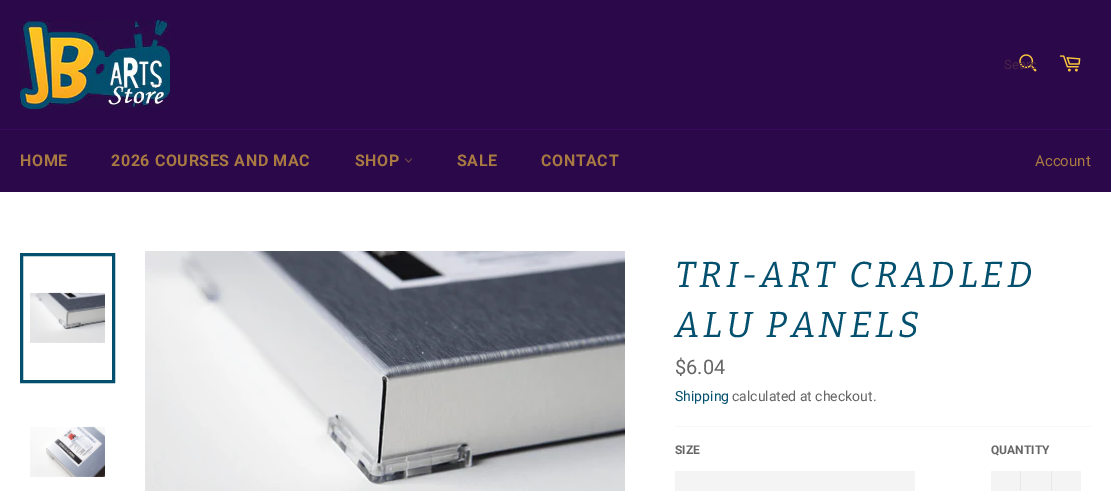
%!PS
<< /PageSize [1111 491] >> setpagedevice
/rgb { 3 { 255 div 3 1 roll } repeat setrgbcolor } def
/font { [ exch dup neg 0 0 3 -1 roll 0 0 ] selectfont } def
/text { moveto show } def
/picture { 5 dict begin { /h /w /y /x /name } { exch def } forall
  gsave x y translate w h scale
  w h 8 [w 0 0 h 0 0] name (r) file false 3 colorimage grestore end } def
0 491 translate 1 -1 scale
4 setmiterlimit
42 8 73 rgb
0 0 1111 491 rectfill
(img_01.rgb) 20 20 150 89 picture
(img_02.rgb) 1019 54 18 18 picture
(img_03.rgb) 1059 55 22 17 picture
55 11 96 rgb
0 129 1111 1 rectfill
(img_04.rgb) 405 158 7 5 picture
255 255 255 rgb
0 192 1111 299 rectfill
(img_05.rgb) 30 292 75 51 picture
2 79 110 rgb
3 setlinewidth
21.5 254.5 92 127 rectstroke
(img_06.rgb) 30 426 75 51 picture
(img_07.rgb) 145 251 480 240 picture
247 247 247 rgb
675 426 416 1 rectfill
244 244 244 rgb
675 471 240 20 rectfill
991 471 90 20 rectfill
231 231 231 rgb
1020 471 1 20 rectfill
1051 471 1 20 rectfill
gsave
1004 57 32 15 rectclip
/Roboto-Regular 13 font
75 38 71 rgb
(Searc) 1004 69 text
grestore
/Roboto-Bold 16 font
169 123 66 rgb
20 166 moveto 0.6 0 (HOME) ashow
111 166 moveto 0.6 0 (2026 COURSES AND MAC) ashow
355 166 moveto 0.6 0 (SHOP) ashow
457 166 moveto 0.6 0 (SALE) ashow
541 166 moveto 0.6 0 (CONTACT) ashow
/Roboto-Regular 15 font
(Account) 1035 166 text
/Bitter-Italic 36 font
2 79 110 rgb
675 287 moveto 3.6 0 (TRI-ART CRADLED) ashow
675 337 moveto 3.6 0 (ALU PANELS) ashow
/Roboto-Regular 20 font
102 102 102 rgb
($6.04) 675 374 text
/Roboto-Regular 14 font
2 79 110 rgb
(Shipping) 675 401 text
102 102 102 rgb
(calculated at checkout.) 732 401 text
/Roboto-Bold 12 font
(SIZE) 675 454 text
(QUANTITY) 991 454 text
showpage
